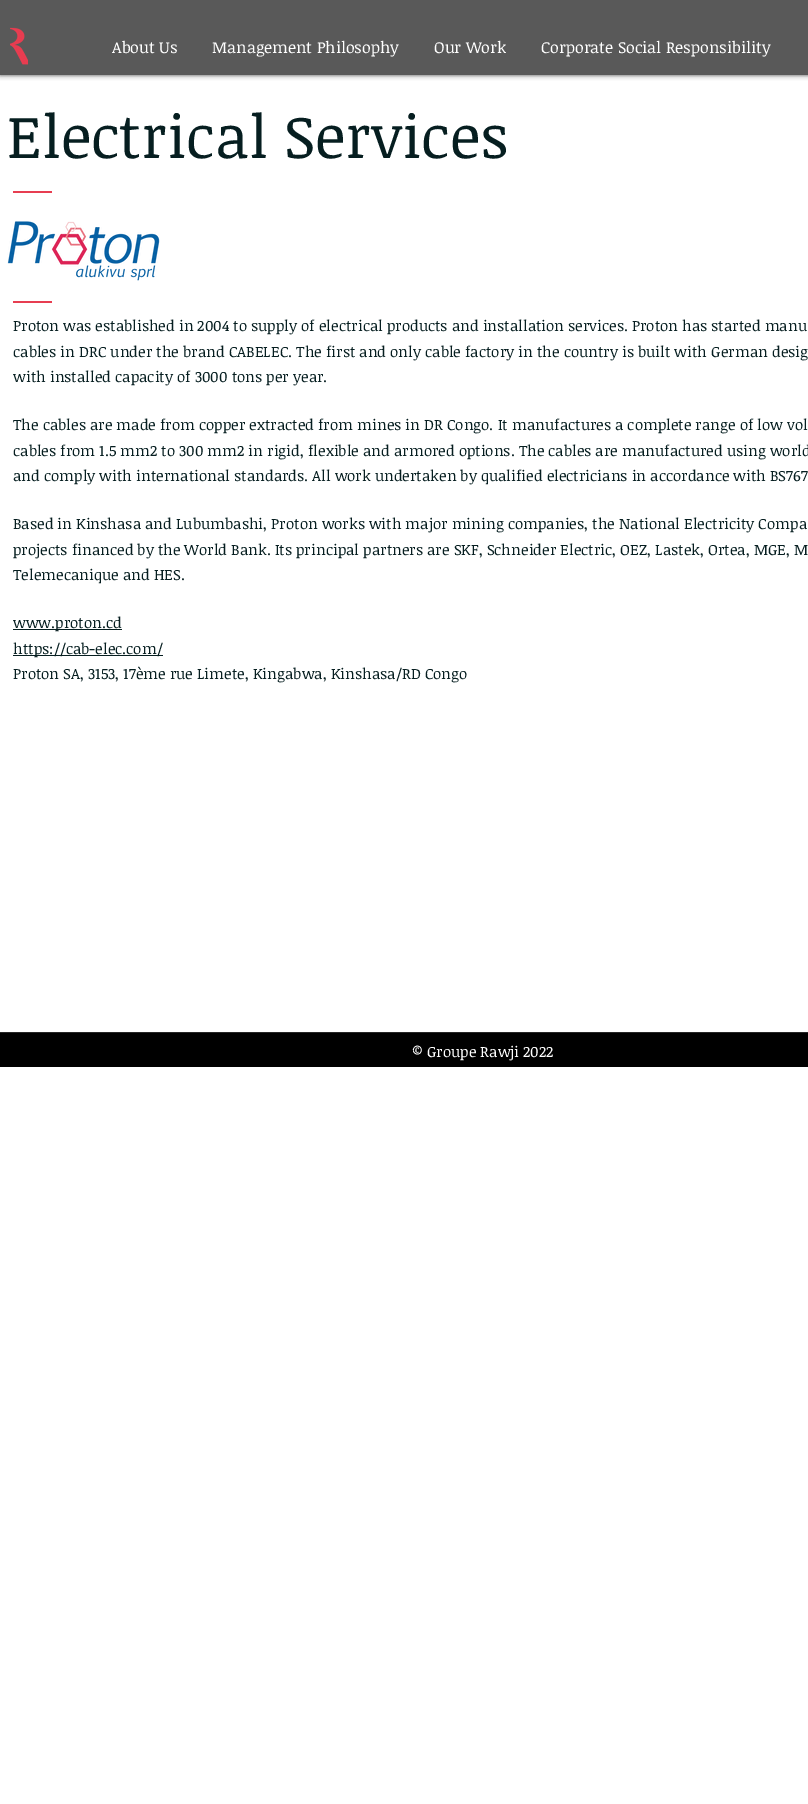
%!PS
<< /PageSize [808 1804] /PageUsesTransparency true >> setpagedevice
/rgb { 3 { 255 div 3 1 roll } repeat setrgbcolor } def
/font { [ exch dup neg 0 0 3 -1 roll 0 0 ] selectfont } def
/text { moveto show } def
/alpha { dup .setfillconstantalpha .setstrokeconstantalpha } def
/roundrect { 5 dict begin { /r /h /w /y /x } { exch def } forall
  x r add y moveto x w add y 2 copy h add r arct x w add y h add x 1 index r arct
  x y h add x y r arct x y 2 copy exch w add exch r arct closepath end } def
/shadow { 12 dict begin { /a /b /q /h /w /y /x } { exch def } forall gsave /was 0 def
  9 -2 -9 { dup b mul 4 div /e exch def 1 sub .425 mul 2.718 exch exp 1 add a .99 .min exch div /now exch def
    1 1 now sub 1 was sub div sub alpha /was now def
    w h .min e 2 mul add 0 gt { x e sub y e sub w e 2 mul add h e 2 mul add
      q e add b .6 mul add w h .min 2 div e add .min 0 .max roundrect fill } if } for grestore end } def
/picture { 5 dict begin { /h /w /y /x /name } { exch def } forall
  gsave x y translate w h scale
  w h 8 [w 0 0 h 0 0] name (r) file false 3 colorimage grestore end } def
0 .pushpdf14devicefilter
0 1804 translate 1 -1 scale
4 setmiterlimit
255 255 255 rgb
0 0 808 1804 rectfill
0 0 0 rgb
0 0 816 75 0 2.5 0.7 shadow
89 89 89 rgb
0 0 808 75 rectfill
(img_01.rgb) 10 27 18 38 picture
231 62 81 rgb
13 191 39 2 rectfill
(img_02.rgb) 7 221 153 60 picture
13 301 39 2 rectfill
6 30 32 rgb
13 629 109 1 rectfill
13 655 150 1 rectfill
0 0 0 rgb
0 1033 808 34 rectfill
38 38 38 rgb
0 1032 808 1 rectfill
/NoticiaText-Regular 16 font
255 255 255 rgb
(About Us) 112 53 text
(Management Philosophy) 212 53 text
(Our Work) 434 53 text
(Corporate Social Responsibility) 541 53 text
/NoticiaText-Regular 60 font
6 30 32 rgb
(Electrical Services) 7 158 text
/NoticiaText-Regular 15 font
(Proton was established in 2004 to supply of electrical products and installation services. Proton has started manu) 13 331 text
(cables in DRC under the brand CABELEC. The first and only cable factory in the country is built with German desig) 13 357 text
(with installed capacity of 3000 tons per year.) 13 382 text
(The cables are made from copper extracted from mines in DR Congo. It manufactures a complete range of low vol) 13 430 text
(cables from 1.5 mm2 to 300 mm2 in rigid, flexible and armored options. The cables are manufactured using world) 13 456 text
(and comply with international standards. All work undertaken by qualified electricians in accordance with BS767) 13 481 text
(Based in Kinshasa and Lubumbashi, Proton works with major mining companies, the National Electricity Compa) 13 529 text
(projects financed by the World Bank. Its principal partners are SKF, Schneider Electric, OEZ, Lastek, Ortea, MGE, M) 13 555 text
(Telemecanique and HES.) 13 580 text
(www.proton.cd) 13 628 text
(https://cab-elec.com/) 13 654 text
(Proton SA, 3153, 17ème rue Limete, Kingabwa, Kinshasa/RD Congo) 13 679 text
255 255 255 rgb
(© Groupe Rawji 2022) 412 1057 text
.poppdf14devicefilter showpage
